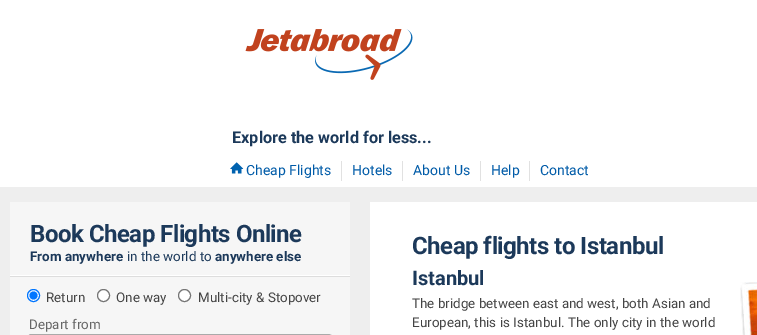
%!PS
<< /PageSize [757 335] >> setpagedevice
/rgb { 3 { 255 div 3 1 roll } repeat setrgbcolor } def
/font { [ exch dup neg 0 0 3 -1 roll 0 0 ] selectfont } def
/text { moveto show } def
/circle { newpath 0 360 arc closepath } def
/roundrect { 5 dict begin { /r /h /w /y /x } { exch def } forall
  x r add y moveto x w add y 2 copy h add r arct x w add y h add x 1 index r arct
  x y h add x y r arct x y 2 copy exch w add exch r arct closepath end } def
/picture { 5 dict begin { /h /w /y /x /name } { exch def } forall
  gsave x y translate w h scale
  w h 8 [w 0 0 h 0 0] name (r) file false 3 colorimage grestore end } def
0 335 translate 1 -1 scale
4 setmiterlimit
238 238 238 rgb
0 0 757 335 rectfill
255 255 255 rgb
0 0 757 187 rectfill
(img_01.rgb) 245 29 168 51 picture
225 225 225 rgb
341 161 1 20 rectfill
(img_02.rgb) 230 162 14 12 picture
402 161 1 20 rectfill
480 161 1 20 rectfill
529 161 1 20 rectfill
246 246 246 rgb
10 202 340 133 rectfill
221 221 221 rgb
10 276 340 1 rectfill
255 255 255 rgb
10 275 340 1 rectfill
33.5 295.5 6 circle gsave fill grestore
0 117 255 rgb
stroke
33.5 295.5 4 circle fill
255 255 255 rgb
103.5 295.5 6 circle gsave fill grestore
118 118 118 rgb
stroke
255 255 255 rgb
184.5 295.5 6 circle gsave fill grestore
118 118 118 rgb
stroke
255 255 255 rgb
27 334 306 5 4 roundrect fill
170 170 170 rgb
28.5 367.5 moveto -2.5 -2.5 -1 -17 -1 -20.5 rcurveto 0 -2.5 -2 -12.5 3.5 -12.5 rcurveto 298 0 rlineto 2.5 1 rlineto stroke
255 255 255 rgb
370 202 387 133 rectfill
(img_03.rgb) 740 282 17 53 picture
/Roboto-Bold 16.25 font
28 57 90 rgb
(Explore the world for less...) 232 143 text
/Roboto-Regular 14 font
0 91 168 rgb
(Cheap Flights) 246 175 text
(Hotels) 352 175 text
(About Us) 413 175 text
(Help) 491 175 text
(Contact) 540 175 text
/Roboto-Bold 24 font
28 57 90 rgb
30 242 moveto -0.5 0 (Book Cheap Flights Online) ashow
/Roboto-Bold 13.4 font
(From anywhere) 30 261 text
/Roboto-Regular 13.4 font
(in the world to) 127 261 text
/Roboto-Bold 13.4 font
(anywhere else) 215 261 text
/Roboto-Regular 13.4 font
68 68 68 rgb
(Return) 46 302 text
(One way) 116 302 text
(Multi-city & Stopover) 198 302 text
102 102 102 rgb
(Depart from) 29 329 text
/Roboto-Bold 24 font
28 57 90 rgb
412 254 moveto -0.5 0 (Cheap flights to Istanbul) ashow
/Roboto-Bold 20 font
(Istanbul) 412 285 text
/Roboto-Regular 13.4 font
68 68 68 rgb
(The bridge between east and west, both Asian and) 412 308 text
(European, this is Istanbul. The only city in the world) 412 327 text
showpage
